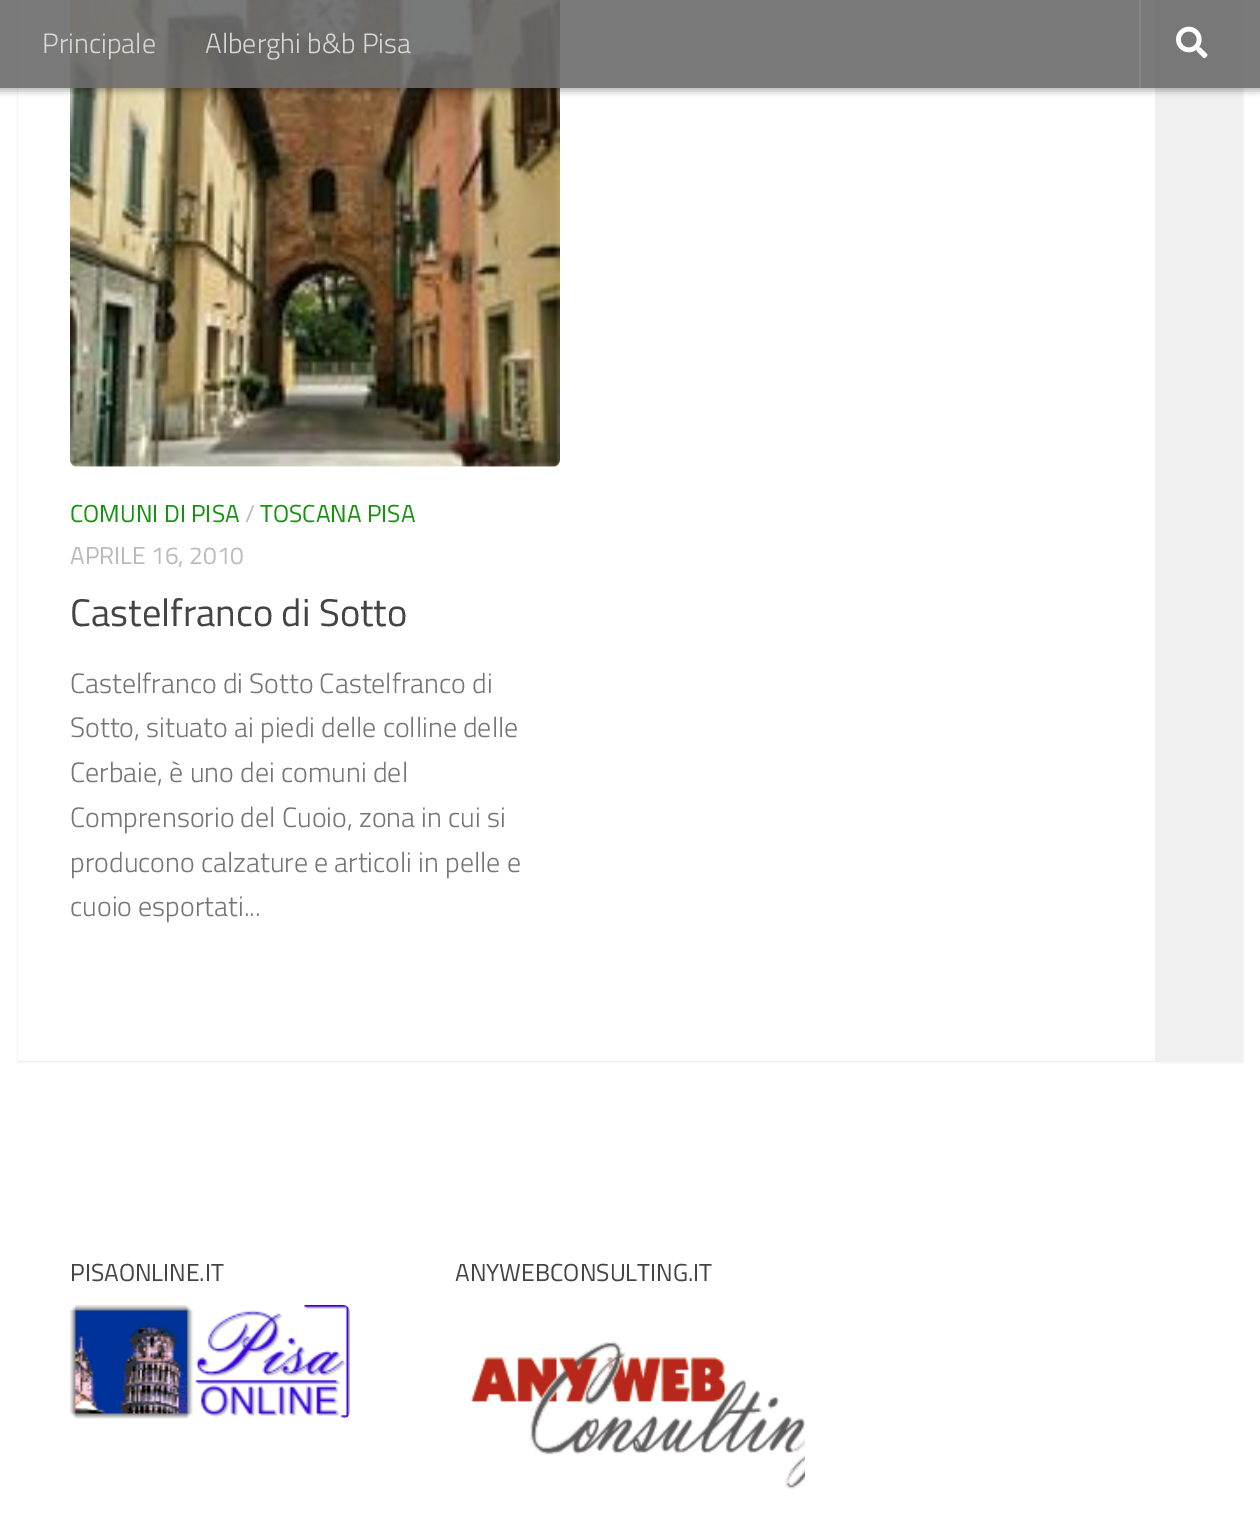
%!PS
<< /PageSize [1260 1526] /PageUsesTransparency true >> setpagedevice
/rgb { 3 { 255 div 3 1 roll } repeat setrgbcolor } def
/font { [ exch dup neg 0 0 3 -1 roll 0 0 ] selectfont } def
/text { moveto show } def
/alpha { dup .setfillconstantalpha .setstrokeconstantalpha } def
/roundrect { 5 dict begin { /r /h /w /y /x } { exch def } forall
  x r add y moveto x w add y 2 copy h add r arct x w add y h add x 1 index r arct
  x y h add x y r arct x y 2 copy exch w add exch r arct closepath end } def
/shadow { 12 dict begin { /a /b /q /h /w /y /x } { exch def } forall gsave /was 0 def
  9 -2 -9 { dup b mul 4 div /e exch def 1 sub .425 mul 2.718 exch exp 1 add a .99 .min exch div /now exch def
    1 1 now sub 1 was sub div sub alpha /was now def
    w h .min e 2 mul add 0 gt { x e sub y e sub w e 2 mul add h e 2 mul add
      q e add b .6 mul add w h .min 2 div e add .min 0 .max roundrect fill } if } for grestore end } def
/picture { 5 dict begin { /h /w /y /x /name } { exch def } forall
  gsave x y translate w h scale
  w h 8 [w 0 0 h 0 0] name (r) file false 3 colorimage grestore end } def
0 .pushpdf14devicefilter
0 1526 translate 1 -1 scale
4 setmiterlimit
255 255 255 rgb
0 0 1260 1526 rectfill
0 0 0 rgb
18 -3 1225 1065 0 1 0.1 shadow
255 255 255 rgb
18 0 1137 1061 rectfill
(img_02.rgb) 70 0 490 467 picture
240 240 240 rgb
1155 0 88 1061 rectfill
gsave
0 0 moveto 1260 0 rlineto 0 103 rlineto -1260 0 rlineto closepath 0 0 moveto 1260 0 rlineto 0 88 rlineto -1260 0 rlineto closepath eoclip newpath
0 0 0 rgb
-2 0 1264 91 0 3.5 0.3 shadow
grestore
0.9 alpha
107 107 107 rgb
0 0 1260 88 rectfill
0.1 alpha
255 255 255 rgb
1139 0 moveto 0 88 rlineto 102 0 rlineto -100 0 rlineto 0 -88 rlineto closepath fill
1 alpha
(img_01.rgb) 1176 26 32 33 picture
(img_03.rgb) 70 1305 280 114 picture
(img_04.rgb) 470 1341 335 148 picture
/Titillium-Light 28 font
214 214 213 rgb
(Principale) 42 53 text
(Alberghi b&b Pisa) 205 53 text
/Titillium-Regular 24.5 font
21 147 14 rgb
(COMUNI DI PISA) 70 522 text
187 187 187 rgb
(/) 245 522 text
21 147 14 rgb
(TOSCANA PISA) 260 522 text
187 187 187 rgb
(APRILE 16, 2010) 70 564 text
/Titillium-Regular 38.5 font
68 68 68 rgb
(Castelfranco di Sotto) 70 626 text
/Titillium-Light 28 font
118 118 118 rgb
(Castelfranco di Sotto Castelfranco di) 70 693 text
(Sotto, situato ai piedi delle colline delle) 70 737 text
(Cerbaie, è uno dei comuni del) 70 782 text
(Comprensorio del Cuoio, zona in cui si) 70 827 text
(producono calzature e articoli in pelle e) 70 872 text
(cuoio esportati...) 70 916 text
/Titillium-Regular 24.6 font
68 68 68 rgb
(PISAONLINE.IT) 70 1281 text
(ANYWEBCONSULTING.IT) 455 1281 text
.poppdf14devicefilter showpage
